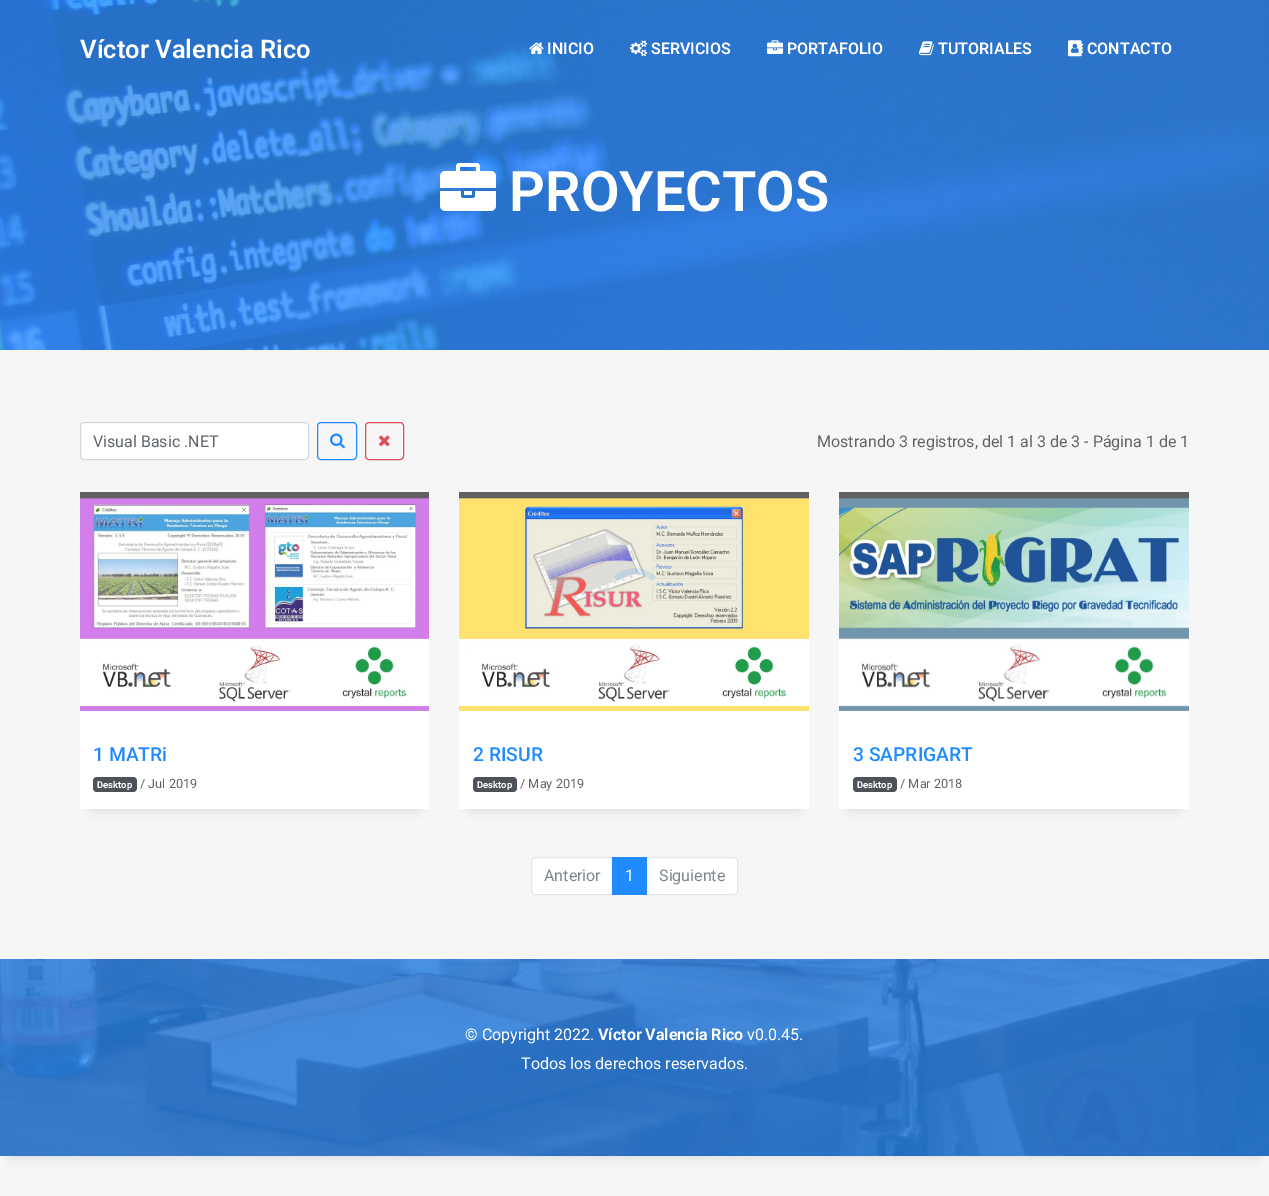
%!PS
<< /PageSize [1269 1196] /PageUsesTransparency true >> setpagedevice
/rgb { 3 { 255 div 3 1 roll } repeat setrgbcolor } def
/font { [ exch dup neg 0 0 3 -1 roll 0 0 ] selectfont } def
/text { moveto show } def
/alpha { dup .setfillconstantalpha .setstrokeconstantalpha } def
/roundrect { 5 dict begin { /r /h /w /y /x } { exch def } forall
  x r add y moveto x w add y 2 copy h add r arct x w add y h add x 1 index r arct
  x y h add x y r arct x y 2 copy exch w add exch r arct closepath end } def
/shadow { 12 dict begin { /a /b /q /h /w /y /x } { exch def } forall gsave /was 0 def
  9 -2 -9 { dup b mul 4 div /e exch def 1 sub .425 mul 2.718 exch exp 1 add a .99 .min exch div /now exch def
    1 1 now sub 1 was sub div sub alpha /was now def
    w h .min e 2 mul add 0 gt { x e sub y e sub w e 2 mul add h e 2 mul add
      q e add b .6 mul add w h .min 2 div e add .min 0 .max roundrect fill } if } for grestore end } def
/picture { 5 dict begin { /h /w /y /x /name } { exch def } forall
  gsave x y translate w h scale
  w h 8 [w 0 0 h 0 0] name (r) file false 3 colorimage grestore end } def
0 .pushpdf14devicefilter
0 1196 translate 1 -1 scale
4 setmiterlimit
246 246 246 rgb
0 0 1269 1196 rectfill
(img_06.rgb) 0 0 1269 350 picture
(img_01.rgb) 529 42 15 12 picture
(img_02.rgb) 630 40 18 17 picture
(img_03.rgb) 767 40 16 14 picture
(img_04.rgb) 919 41 15 15 picture
(img_05.rgb) 1068 40 15 17 picture
(img_07.rgb) 440 163 56 48 picture
255 255 255 rgb
80.5 422.5 228 37 3.5 roundrect gsave fill grestore
212 217 222 rgb
stroke
31 139 255 rgb
317.5 422.5 39 37 3.5 roundrect stroke
(img_08.rgb) 330 433 15 16 picture
224 77 91 rgb
365.5 422.5 38 37 3.5 roundrect stroke
(img_09.rgb) 379 435 11 12 picture
31 31 31 rgb
90 515 329 297 0 4 0.1 shadow
255 255 255 rgb
80 711 349 98 rectfill
(img_10.rgb) 80 492 349 219 picture
76 82 87 rgb
93 777 44 15 4 roundrect fill
31 31 31 rgb
469 515 330 297 0 4 0.1 shadow
255 255 255 rgb
459 711 350 98 rectfill
(img_11.rgb) 459 492 350 219 picture
76 82 87 rgb
473 777 44 15 4 roundrect fill
31 31 31 rgb
849 515 330 297 0 4 0.1 shadow
255 255 255 rgb
839 710 350 99 rectfill
(img_12.rgb) 839 492 350 219 picture
76 82 87 rgb
853 777 44 15 4 roundrect fill
255 255 255 rgb
535 857.5 moveto 77.5 0 rlineto 0 37 rlineto -77.5 0 rlineto -2 0 -3.5 -1.5 -3.5 -3.5 rcurveto 0 -30 rlineto 0 -2 1.5 -3.5 3.5 -3.5 rcurveto closepath gsave fill grestore
226 229 233 rgb
stroke
255 255 255 rgb
646.5 857.5 moveto 87.5 0 rlineto 2 0 3.5 1.5 3.5 3.5 rcurveto 0 30 rlineto 0 2 -1.5 3.5 -3.5 3.5 rcurveto -87.5 0 rlineto closepath gsave fill grestore
226 229 233 rgb
stroke
31 139 255 rgb
612 857 35 38 rectfill
0.12 alpha
0 120 255 rgb
6 setlinewidth
616 579 moveto 10.5 -10.5 27.5 -10.5 38 0 rcurveto stroke
242 242 242 rgb
654 579 moveto 5 5 8 12 8 19 rcurveto 0 32 -47 37 -53.5 5.5 rcurveto -1.5 -9 1 -18.5 7.5 -24.5 rcurveto stroke
1 alpha
31 31 31 rgb
10 982 1249 177 0 4 0.1 shadow
(img_13.rgb) 0 959 1269 197 picture
/Roboto-SemiBold 25.5 font
255 255 255 rgb
(Víctor Valencia Rico) 80 58 text
/Roboto-SemiBold 16 font
(INICIO) 547 54 text
(SERVICIOS) 651 54 text
(PORTAFOLIO) 787 54 text
(TUTORIALES) 938 54 text
(CONTACTO) 1087 54 text
/Roboto-SemiBold 56 font
(PROYECTOS) 509 211 text
/Roboto-Regular 16 font
95 101 107 rgb
(Visual Basic .NET) 93 447 text
99 99 99 rgb
(Mostrando 3 registros, del 1 al 3 de 3 - Página 1 de 1) 817 447 text
/Roboto-Medium 19.25 font
31 139 255 rgb
(1 MATRi) 93 761 text
/Roboto-Bold 9.5 font
255 255 255 rgb
(Desktop) 97 788 text
/Roboto-Regular 12.75 font
99 99 99 rgb
(/ Jul 2019) 140 788 text
/Roboto-Medium 19.25 font
31 139 255 rgb
(2 RISUR) 473 761 text
/Roboto-Bold 9.5 font
255 255 255 rgb
(Desktop) 477 788 text
/Roboto-Regular 12.75 font
99 99 99 rgb
(/ May 2019) 520 788 text
/Roboto-Medium 19.25 font
31 139 255 rgb
(3 SAPRIGART) 853 761 text
/Roboto-Bold 9.5 font
255 255 255 rgb
(Desktop) 857 788 text
/Roboto-Regular 12.75 font
99 99 99 rgb
(/ Mar 2018) 900 788 text
/Roboto-Regular 16 font
126 134 141 rgb
(Anterior) 544 881 text
255 255 255 rgb
(1) 625 881 text
126 134 141 rgb
(Siguiente) 659 881 text
255 255 255 rgb
(© Copyright 2022.) 465 1040 text
/Roboto-Bold 16 font
(Víctor Valencia Rico) 598 1040 text
/Roboto-Regular 16 font
(v0.0.45.) 747 1040 text
(Todos los derechos reservados.) 521 1069 text
.poppdf14devicefilter showpage
